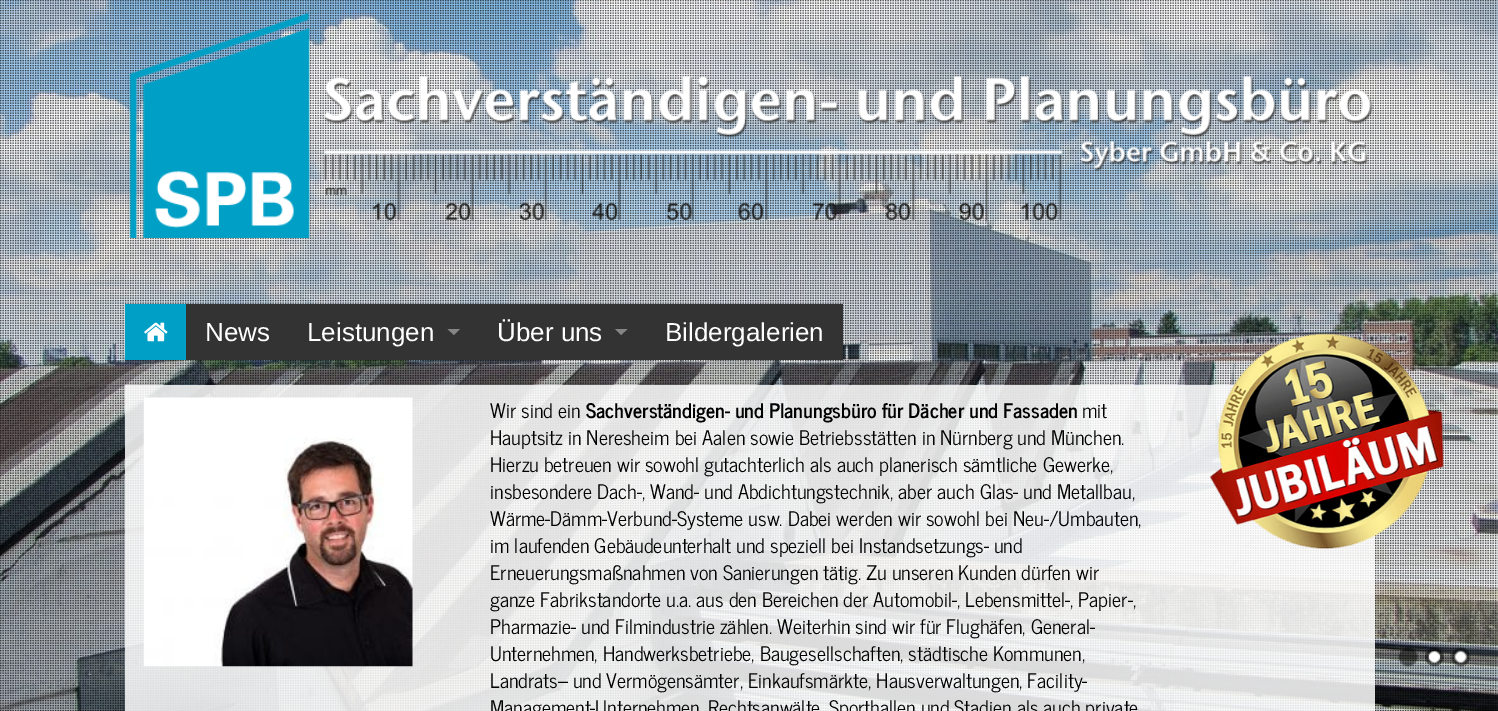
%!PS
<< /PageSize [1498 711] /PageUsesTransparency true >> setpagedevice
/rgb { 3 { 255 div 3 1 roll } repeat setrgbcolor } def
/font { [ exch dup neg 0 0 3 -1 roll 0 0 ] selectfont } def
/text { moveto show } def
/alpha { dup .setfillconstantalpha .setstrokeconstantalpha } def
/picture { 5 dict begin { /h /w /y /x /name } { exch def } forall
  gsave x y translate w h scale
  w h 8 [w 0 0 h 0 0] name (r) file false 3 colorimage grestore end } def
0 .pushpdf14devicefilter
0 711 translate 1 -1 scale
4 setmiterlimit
255 255 255 rgb
0 0 1498 711 rectfill
(img_01.rgb) 0 0 1498 711 picture
(img_02.rgb) 0 0 1498 711 picture
(img_03.rgb) 1398 647 20 20 picture
(img_04.rgb) 1425 647 19 20 picture
(img_05.rgb) 1450 647 21 20 picture
(img_06.rgb) 129 12 1245 226 picture
0 160 198 rgb
125 304 61 56 rectfill
(img_07.rgb) 144 322 24 20 picture
51 51 51 rgb
186 304 293 56 rectfill
133 133 133 rgb
447.5 329 moveto 12.5 0 rlineto -6 6 rlineto closepath fill
51 51 51 rgb
479 304 364 56 rectfill
133 133 133 rgb
615 329 moveto 12.5 0 rlineto -6.5 6 rlineto closepath fill
0.85 alpha
255 255 255 rgb
125 385 1250 326 rectfill
1 alpha
(img_08.rgb) 143 397 270 270 picture
(img_09.rgb) 1209 333 235 217 picture
/LiberationSans-Regular 26 font
(News) 205 341 text
(Leistungen) 307 341 text
(Über uns) 497 341 text
(Bildergalerien) 665 341 text
/NewsCycle-Regular 20 font
0 0 0 rgb
(Wir sind ein) 490 418 text
/NewsCycle-Bold 20 font
(Sachverständigen- und Planungsbüro für Dächer und Fassaden) 586 418 text
/NewsCycle-Regular 20 font
(mit) 1082 418 text
(Hauptsitz in Neresheim bei Aalen sowie Betriebsstätten in Nürnberg und München.) 490 445 text
(Hierzu betreuen wir sowohl gutachterlich als auch planerisch sämtliche Gewerke,) 490 472 text
(insbesondere Dach-, Wand- und Abdichtungstechnik, aber auch Glas- und Metallbau,) 490 499 text
(Wärme-Dämm-Verbund-Systeme usw. Dabei werden wir sowohl bei Neu-/Umbauten,) 490 526 text
(im laufenden Gebäudeunterhalt und speziell bei Instandsetzungs- und) 490 553 text
(Erneuerungsmaßnahmen von Sanierungen tätig. Zu unseren Kunden dürfen wir) 490 580 text
(ganze Fabrikstandorte u.a. aus den Bereichen der Automobil-, Lebensmittel-, Papier-,) 490 607 text
(Pharmazie- und Filmindustrie zählen. Weiterhin sind wir für Flughäfen, General-) 490 634 text
(Unternehmen, Handwerksbetriebe, Baugesellschaften, städtische Kommunen,) 490 661 text
(Landrats– und Vermögensämter, Einkaufsmärkte, Hausverwaltungen, Facility-) 490 688 text
(Management-Unternehmen, Rechtsanwälte, Sporthallen und Stadien als auch private) 490 715 text
.poppdf14devicefilter showpage
